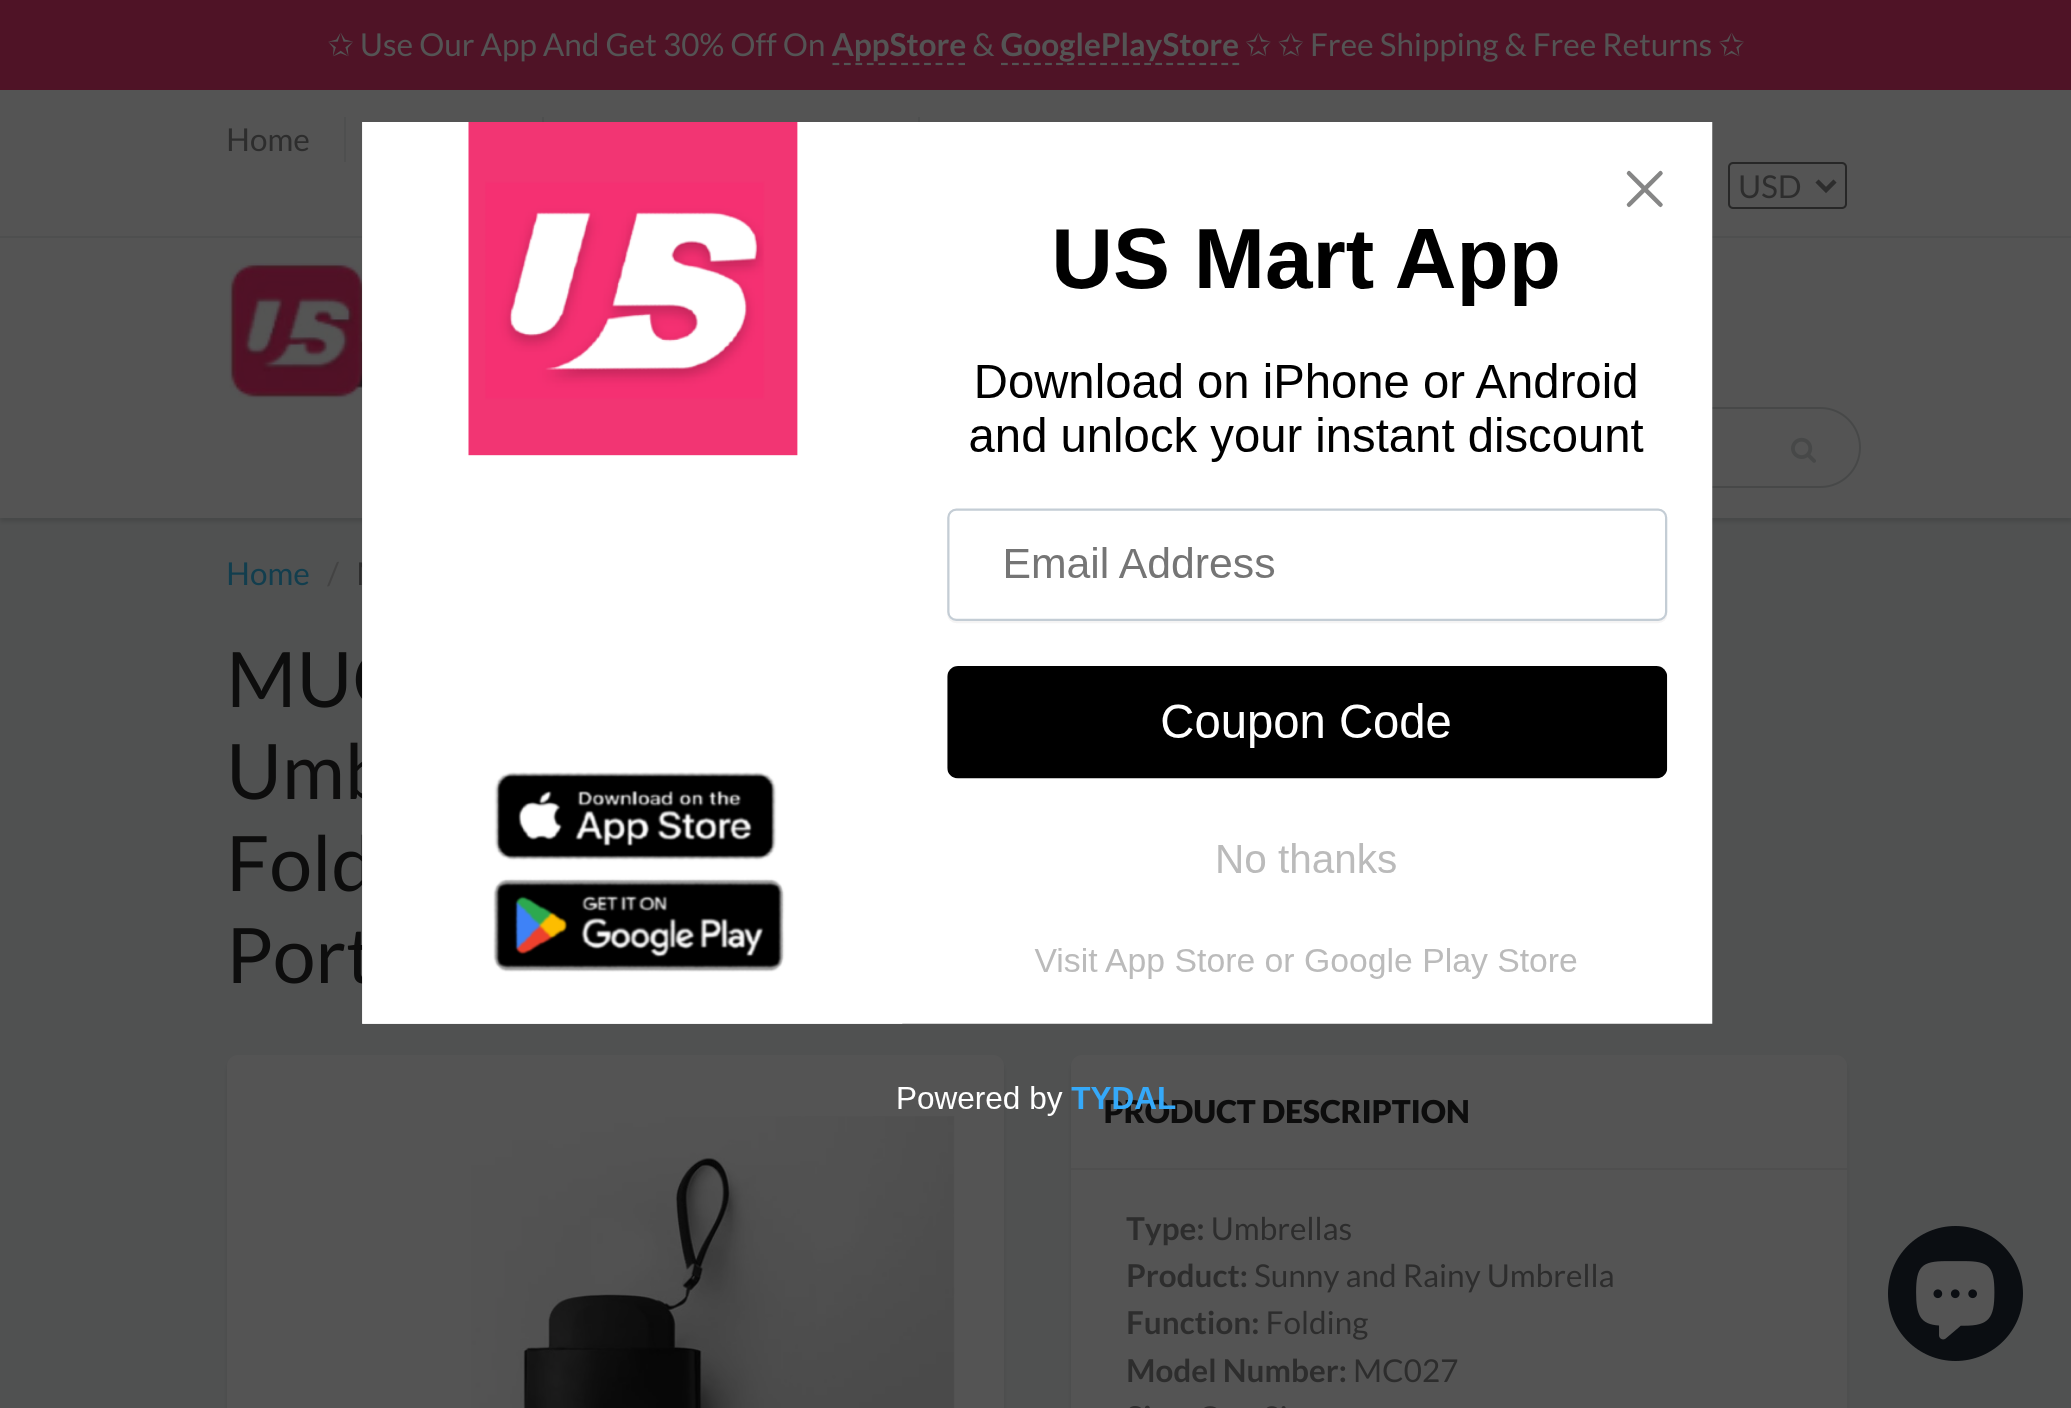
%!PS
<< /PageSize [2071 1408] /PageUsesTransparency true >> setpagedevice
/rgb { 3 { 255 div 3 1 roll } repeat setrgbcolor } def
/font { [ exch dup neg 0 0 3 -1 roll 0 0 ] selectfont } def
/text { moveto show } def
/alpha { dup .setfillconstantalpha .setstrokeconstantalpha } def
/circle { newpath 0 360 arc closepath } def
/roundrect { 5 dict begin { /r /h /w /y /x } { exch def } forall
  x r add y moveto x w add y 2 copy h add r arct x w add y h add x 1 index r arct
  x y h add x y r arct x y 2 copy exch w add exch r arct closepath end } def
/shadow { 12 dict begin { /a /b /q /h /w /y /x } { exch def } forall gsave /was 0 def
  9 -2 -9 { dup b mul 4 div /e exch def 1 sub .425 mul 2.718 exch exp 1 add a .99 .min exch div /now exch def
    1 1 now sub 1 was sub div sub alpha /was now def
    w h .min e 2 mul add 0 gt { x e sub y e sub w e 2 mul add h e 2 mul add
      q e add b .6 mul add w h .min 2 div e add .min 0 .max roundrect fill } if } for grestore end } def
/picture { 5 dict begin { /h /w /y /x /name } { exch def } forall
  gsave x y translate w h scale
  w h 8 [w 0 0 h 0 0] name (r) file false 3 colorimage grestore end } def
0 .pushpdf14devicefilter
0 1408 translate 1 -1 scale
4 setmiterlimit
255 255 255 rgb
0 0 2071 1408 rectfill
239 57 116 rgb
0 0 2071 90 rectfill
255 255 255 rgb
2.2 setlinewidth
[6.75 4.7] 0 setdash
832.5 64 moveto 132.5 0 rlineto stroke
[6.75 4.27] 0 setdash
1001 64 moveto 239 0 rlineto stroke
236 239 239 rgb
344 117 2 45 rectfill
542 117 2 5 rectfill
918 117 2 5 rectfill
118 118 118 rgb
2 setlinewidth
[] 0 setdash
1729 163 117 45 4 roundrect stroke
137 137 137 rgb
4.5 setlinewidth
1817 181 moveto 9 9 rlineto 9 -9 rlineto stroke
243 246 246 rgb
0 518 2071 890 rectfill
11 25 28 rgb
0 241 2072 281 0 2 0.12 shadow
255 255 255 rgb
0 238 2071 280 rectfill
236 239 239 rgb
0 236 2071 2 rectfill
(img_02.rgb) 229 263 134 136 picture
215 219 219 rgb
2 setlinewidth
1396 408 464 79 39.5 roundrect stroke
(img_03.rgb) 1791 437 25 26 picture
11 25 28 rgb
227 1060 777 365 11 2 0.1 shadow
255 255 255 rgb
227 1055 777 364 11 roundrect fill
(img_04.rgb) 471 1116 484 292 picture
11 25 28 rgb
1071 1060 776 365 11 2 0.1 shadow
255 255 255 rgb
1071 1055 776 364 11 roundrect fill
239 239 239 rgb
1071 1168 776 2 rectfill
32 42 54 rgb
1955.5 1293.5 67.5 circle fill
(img_05.rgb) 1916 1261 79 79 picture
/DejaVuSans-Regular 31.5 font
255 255 255 rgb
(✩) 327 56 text
/Lato-Regular 31.5 font
(Use Our App And Get 30% Off On) 360 56 text
/Lato-Bold 31.5 font
(AppStore) 832 56 text
/Lato-Regular 31.5 font
(&) 972 56 text
/Lato-Bold 31.5 font
(GooglePlayStore) 1001 56 text
/DejaVuSans-Regular 31.5 font
(✩) 1245 56 text
(✩) 1278 56 text
/Lato-Regular 31.5 font
(Free Shipping & Free Returns) 1310 56 text
/DejaVuSans-Regular 31.5 font
(✩) 1718 56 text
/Lato-Regular 31.5 font
137 137 137 rgb
(Home) 226 151 text
(USD) 1738 198 text
55 187 236 rgb
(Home) 226 585 text
204 204 204 rgb
(/) 327 585 text
/Lato-Regular 76.5 font
40 40 39 rgb
(MU) 226 707 text
(Umb) 226 799 text
(Fold) 226 891 text
(Port) 226 983 text
/Lato-Black 31.5 font
(PRODUCT DESCRIPTION) 1104 1123 text
/Lato-Bold 31.5 font
137 137 137 rgb
(Type:) 1126 1240 text
/Lato-Regular 31.5 font
(Umbrellas) 1211 1240 text
/Lato-Bold 31.5 font
(Product:) 1126 1287 text
/Lato-Regular 31.5 font
(Sunny and Rainy Umbrella) 1254 1287 text
/Lato-Bold 31.5 font
(Function:) 1126 1334 text
/Lato-Regular 31.5 font
(Folding) 1266 1334 text
/Lato-Bold 31.5 font
(Model Number:) 1126 1382 text
/Lato-Regular 31.5 font
(MC027) 1353 1382 text
(img_01.rgb) 0 0 2071 1408 picture
.poppdf14devicefilter showpage
